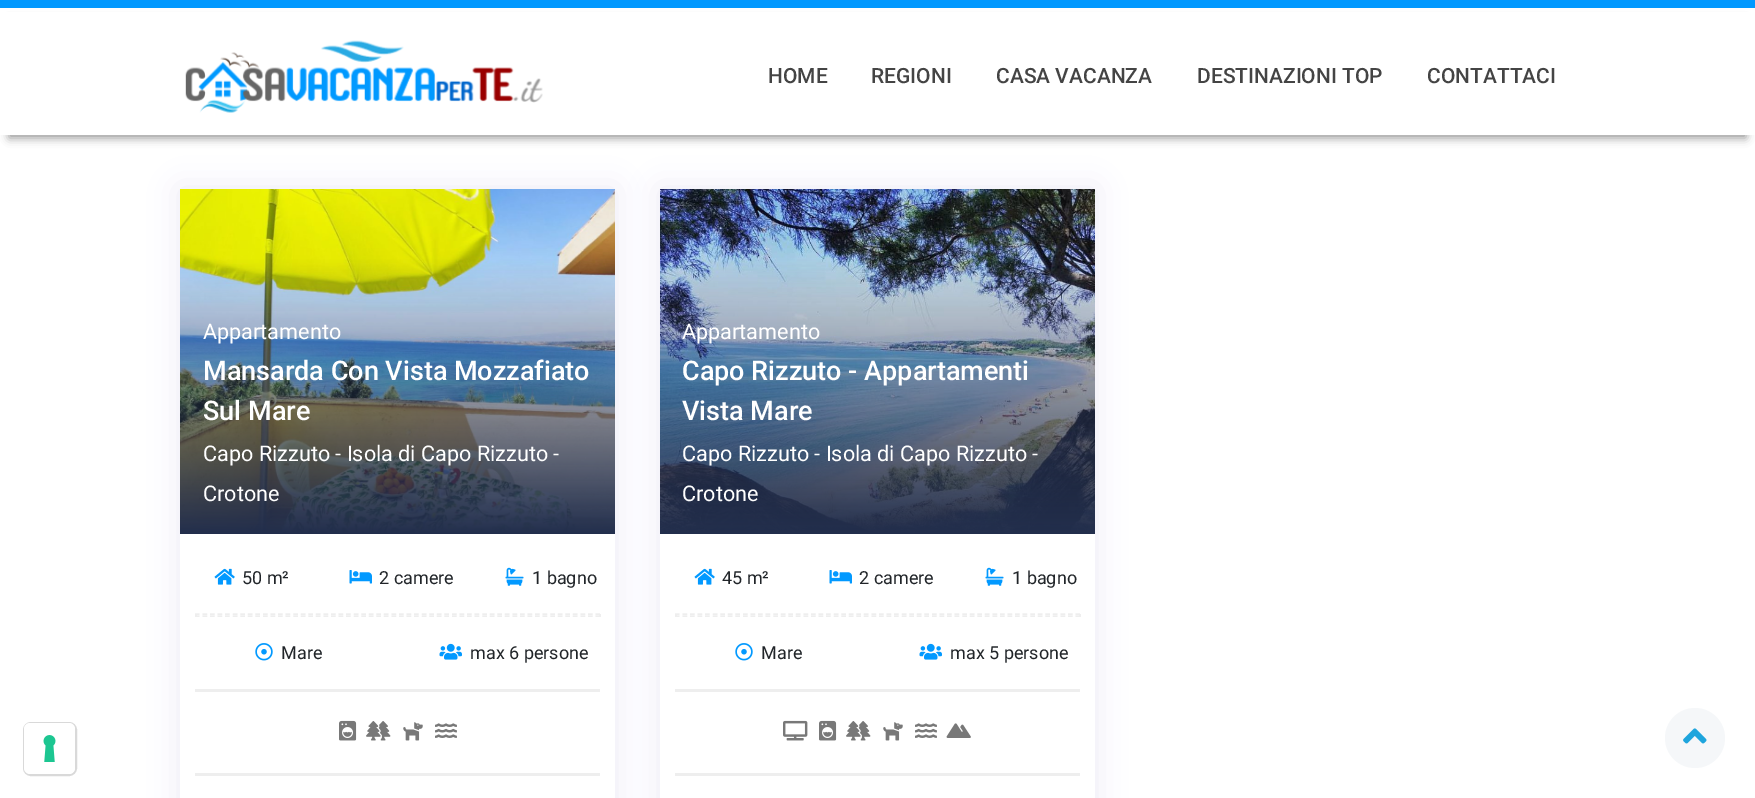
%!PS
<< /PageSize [1755 798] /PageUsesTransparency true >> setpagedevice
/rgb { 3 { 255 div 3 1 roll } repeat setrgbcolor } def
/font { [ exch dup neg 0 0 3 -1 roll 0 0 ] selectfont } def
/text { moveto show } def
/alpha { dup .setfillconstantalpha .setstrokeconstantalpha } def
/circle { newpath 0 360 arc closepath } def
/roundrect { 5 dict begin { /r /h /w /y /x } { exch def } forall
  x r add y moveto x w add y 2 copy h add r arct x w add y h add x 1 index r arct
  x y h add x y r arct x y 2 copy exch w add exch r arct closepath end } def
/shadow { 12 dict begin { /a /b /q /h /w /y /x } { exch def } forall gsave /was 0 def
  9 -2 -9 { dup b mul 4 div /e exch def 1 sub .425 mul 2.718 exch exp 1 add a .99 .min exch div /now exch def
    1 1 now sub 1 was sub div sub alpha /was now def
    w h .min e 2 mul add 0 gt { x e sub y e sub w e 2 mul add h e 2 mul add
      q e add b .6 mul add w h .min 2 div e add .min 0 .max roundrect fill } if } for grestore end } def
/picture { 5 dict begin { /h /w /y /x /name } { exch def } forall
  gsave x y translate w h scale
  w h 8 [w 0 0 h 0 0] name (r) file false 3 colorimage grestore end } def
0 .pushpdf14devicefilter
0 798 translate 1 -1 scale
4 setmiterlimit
255 255 255 rgb
0 0 1755 798 rectfill
0 0 0 rgb
9 21 1737 117 0 4.5 0.4 shadow
255 255 255 rgb
0 12 1755 123 rectfill
2 153 255 rgb
0 0 1755 8 rectfill
(img_01.rgb) 185 40 358 73 picture
gsave
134 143 moveto 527 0 rlineto 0 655 rlineto -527 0 rlineto closepath 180 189 moveto 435 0 rlineto 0 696 rlineto -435 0 rlineto closepath eoclip newpath
62 28 131 rgb
180 189 435 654 0 15 0.1 shadow
grestore
(img_02.rgb) 180 189 435 345 picture
(img_03.rgb) 214 568 21 17 picture
(img_04.rgb) 349 570 23 14 picture
(img_05.rgb) 505 567 19 19 picture
238 238 238 rgb
1.5 setlinewidth
[4.5 3.06] 0 setdash
195 614 moveto 405 0 rlineto stroke
599 614 2 3 rectfill
195 616 moveto 405 0 rlineto stroke
195 614 2 3 rectfill
(img_06.rgb) 255 643 18 18 picture
(img_07.rgb) 439 643 23 17 picture
195 689 405 3 rectfill
(img_08.rgb) 339 720 18 21 picture
(img_09.rgb) 366 721 25 20 picture
(img_10.rgb) 403 722 20 19 picture
(img_11.rgb) 435 723 22 15 picture
195 773 405 3 rectfill
gsave
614 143 moveto 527 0 rlineto 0 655 rlineto -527 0 rlineto closepath 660 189 moveto 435 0 rlineto 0 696 rlineto -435 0 rlineto closepath eoclip newpath
62 28 131 rgb
660 189 435 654 0 15 0.1 shadow
grestore
(img_12.rgb) 660 189 435 345 picture
(img_03.rgb) 694 568 21 17 picture
(img_04.rgb) 829 570 23 14 picture
(img_05.rgb) 985 567 19 19 picture
675 614 moveto 405 0 rlineto stroke
1079 614 2 3 rectfill
675 616 moveto 405 0 rlineto stroke
675 614 2 3 rectfill
(img_06.rgb) 735 643 18 18 picture
(img_07.rgb) 919 643 23 17 picture
675 689 405 3 rectfill
(img_13.rgb) 783 720 25 21 picture
(img_08.rgb) 819 720 18 21 picture
(img_09.rgb) 846 721 25 20 picture
(img_10.rgb) 883 722 20 19 picture
(img_11.rgb) 915 723 22 15 picture
(img_14.rgb) 946 723 25 15 picture
675 773 405 3 rectfill
217 217 217 rgb
2 setlinewidth
[] 0 setdash
24 723 52 52 7 roundrect stroke
255 255 255 rgb
24 723 51 51 6 roundrect fill
(img_15.rgb) 43 735 13 27 picture
245 247 249 rgb
1695 738 30 circle fill
(img_16.rgb) 1683 728 24 16 picture
/Roboto-Medium 21 font
68 68 68 rgb
(HOME) 768 83 text
(REGIONI) 871 83 text
(CASA VACANZA) 996 83 text
(DESTINAZIONI TOP) 1197 83 text
(CONTATTACI) 1427 83 text
/Roboto-Regular 21.6 font
255 255 255 rgb
(Appartamento) 203 339 text
/Roboto-Medium 27 font
(Mansarda Con Vista Mozzafiato) 203 380 text
(Sul Mare) 203 420 text
/Roboto-Regular 21.6 font
(Capo Rizzuto - Isola di Capo Rizzuto -) 203 461 text
(Crotone) 203 501 text
/Roboto-Regular 18 font
33 37 41 rgb
(50 m²) 242 584 text
(2 camere) 379 584 text
(1 bagno) 532 584 text
(Mare) 281 659 text
(max 6 persone) 470 659 text
/Roboto-Regular 21.6 font
255 255 255 rgb
(Appartamento) 682 339 text
/Roboto-Medium 27 font
(Capo Rizzuto - Appartamenti) 682 380 text
(Vista Mare) 682 420 text
/Roboto-Regular 21.6 font
(Capo Rizzuto - Isola di Capo Rizzuto -) 682 461 text
(Crotone) 682 501 text
/Roboto-Regular 18 font
33 37 41 rgb
(45 m²) 722 584 text
(2 camere) 859 584 text
(1 bagno) 1012 584 text
(Mare) 761 659 text
(max 5 persone) 950 659 text
.poppdf14devicefilter showpage
